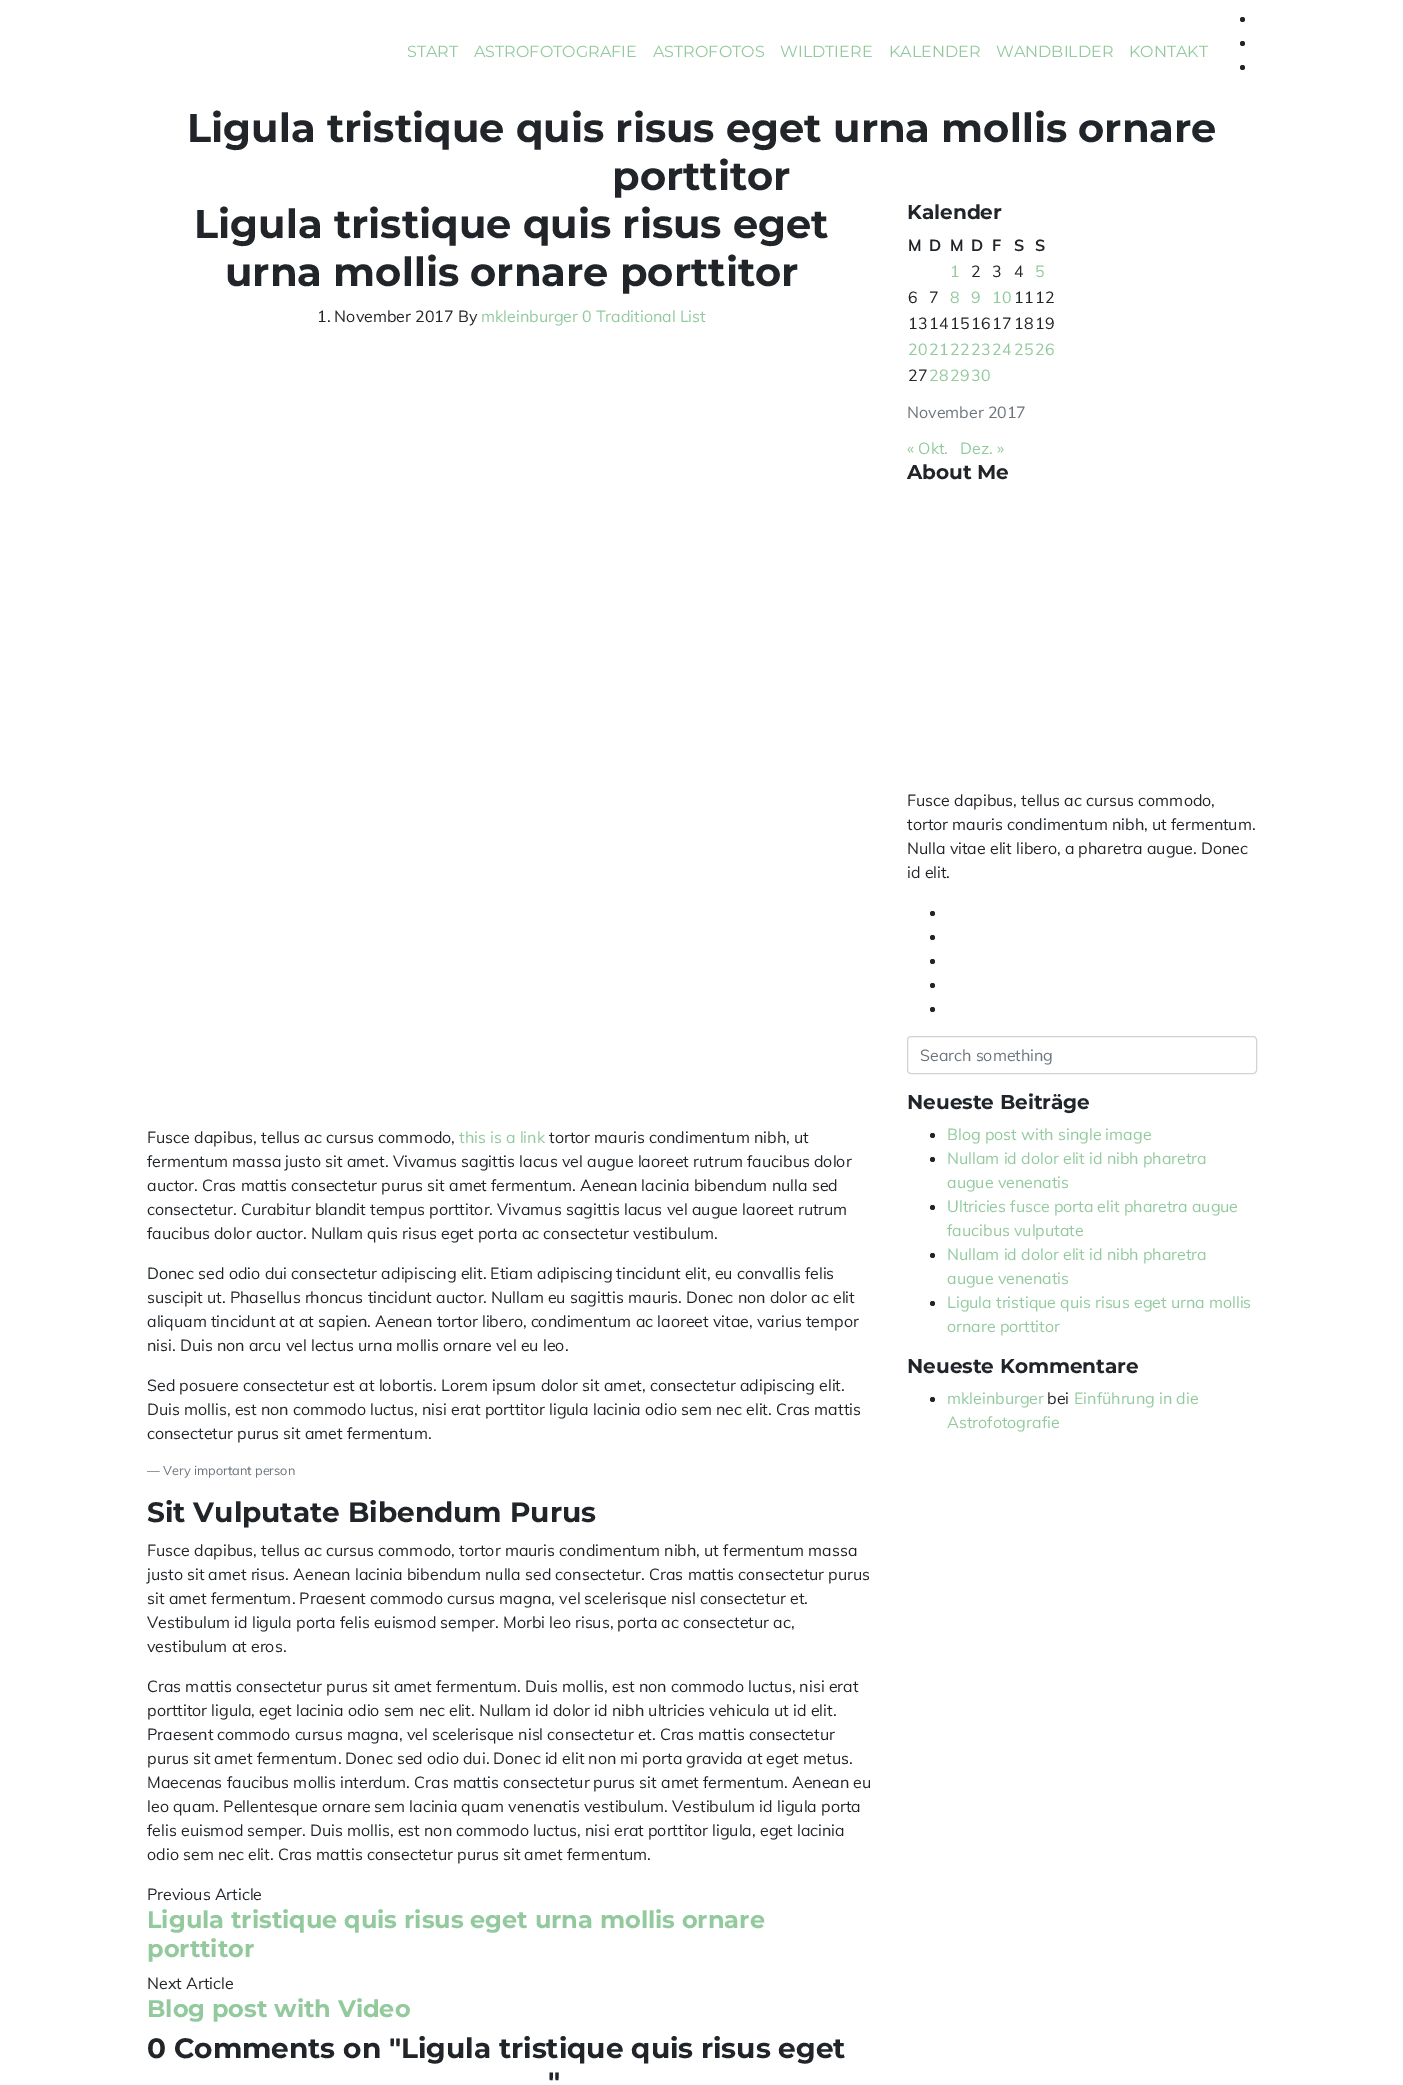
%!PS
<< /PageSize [1403 2085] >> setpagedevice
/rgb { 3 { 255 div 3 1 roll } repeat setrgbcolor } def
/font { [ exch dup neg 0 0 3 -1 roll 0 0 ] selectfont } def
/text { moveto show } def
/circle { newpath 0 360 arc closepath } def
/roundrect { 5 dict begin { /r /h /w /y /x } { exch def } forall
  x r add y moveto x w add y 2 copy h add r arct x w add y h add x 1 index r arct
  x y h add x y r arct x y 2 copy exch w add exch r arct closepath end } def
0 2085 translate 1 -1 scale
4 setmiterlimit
255 255 255 rgb
0 0 1403 2085 rectfill
33 37 41 rgb
1242.5 19.5 2.5 circle fill
1242.5 43.5 2.5 circle fill
1242.5 67.5 2.5 circle fill
932.5 913.5 2.5 circle fill
932.5 937.5 2.5 circle fill
932.5 961.5 2.5 circle fill
932.5 985.5 2.5 circle fill
932.5 1009.5 2.5 circle fill
206 212 218 rgb
907.5 1036.5 349 37 3.5 roundrect stroke
33 37 41 rgb
932.5 1135.5 2.5 circle fill
932.5 1159.5 2.5 circle fill
932.5 1207.5 2.5 circle fill
932.5 1255.5 2.5 circle fill
932.5 1303.5 2.5 circle fill
932.5 1399.5 2.5 circle fill
/Montserrat-Regular 16 font
146 202 157 rgb
(START) 407 57 text
(ASTROFOTOGRAFIE) 474 57 text
(ASTROFOTOS) 653 57 text
(WILDTIERE) 780 57 text
(KALENDER) 889 57 text
(WANDBILDER) 996 57 text
(KONTAKT) 1129 57 text
/Montserrat-Bold 40 font
33 37 41 rgb
(Ligula tristique quis risus eget urna mollis ornare) 187 142 text
(porttitor) 612 190 text
(Ligula tristique quis risus eget) 194 238 text
(urna mollis ornare porttitor) 225 286 text
/Muli-Regular 16 font
(1. November 2017 By) 317 322 text
146 202 157 rgb
(mkleinburger 0 Traditional List) 481 322 text
33 37 41 rgb
(Fusce dapibus, tellus ac cursus commodo,) 147 1143 text
146 202 157 rgb
(this is a link) 459 1143 text
33 37 41 rgb
(tortor mauris condimentum nibh, ut) 549 1143 text
(fermentum massa justo sit amet. Vivamus sagittis lacus vel augue laoreet rutrum faucibus dolor) 147 1167 text
(auctor. Cras mattis consectetur purus sit amet fermentum. Aenean lacinia bibendum nulla sed) 147 1191 text
(consectetur. Curabitur blandit tempus porttitor. Vivamus sagittis lacus vel augue laoreet rutrum) 147 1215 text
(faucibus dolor auctor. Nullam quis risus eget porta ac consectetur vestibulum.) 147 1239 text
(Donec sed odio dui consectetur adipiscing elit. Etiam adipiscing tincidunt elit, eu convallis felis) 147 1279 text
(suscipit ut. Phasellus rhoncus tincidunt auctor. Nullam eu sagittis mauris. Donec non dolor ac elit) 147 1303 text
(aliquam tincidunt at at sapien. Aenean tortor libero, condimentum ac laoreet vitae, varius tempor) 147 1327 text
(nisi. Duis non arcu vel lectus urna mollis ornare vel eu leo.) 147 1351 text
(Sed posuere consectetur est at lobortis. Lorem ipsum dolor sit amet, consectetur adipiscing elit.) 147 1391 text
(Duis mollis, est non commodo luctus, nisi erat porttitor ligula lacinia odio sem nec elit. Cras mattis) 147 1415 text
(consectetur purus sit amet fermentum.) 147 1439 text
/Muli-Regular 12.75 font
108 117 125 rgb
(— Very important person) 147 1475 text
/Montserrat-Bold 28 font
33 37 41 rgb
(Sit Vulputate Bibendum Purus) 147 1522 text
/Muli-Regular 16 font
(Fusce dapibus, tellus ac cursus commodo, tortor mauris condimentum nibh, ut fermentum massa) 147 1556 text
(justo sit amet risus. Aenean lacinia bibendum nulla sed consectetur. Cras mattis consectetur purus) 147 1580 text
(sit amet fermentum. Praesent commodo cursus magna, vel scelerisque nisl consectetur et.) 147 1604 text
(Vestibulum id ligula porta felis euismod semper. Morbi leo risus, porta ac consectetur ac,) 147 1628 text
(vestibulum at eros.) 147 1652 text
(Cras mattis consectetur purus sit amet fermentum. Duis mollis, est non commodo luctus, nisi erat) 147 1692 text
(porttitor ligula, eget lacinia odio sem nec elit. Nullam id dolor id nibh ultricies vehicula ut id elit.) 147 1716 text
(Praesent commodo cursus magna, vel scelerisque nisl consectetur et. Cras mattis consectetur) 147 1740 text
(purus sit amet fermentum. Donec sed odio dui. Donec id elit non mi porta gravida at eget metus.) 147 1764 text
(Maecenas faucibus mollis interdum. Cras mattis consectetur purus sit amet fermentum. Aenean eu) 147 1788 text
(leo quam. Pellentesque ornare sem lacinia quam venenatis vestibulum. Vestibulum id ligula porta) 147 1812 text
(felis euismod semper. Duis mollis, est non commodo luctus, nisi erat porttitor ligula, eget lacinia) 147 1836 text
(odio sem nec elit. Cras mattis consectetur purus sit amet fermentum.) 147 1860 text
(Previous Article) 147 1900 text
/Montserrat-Bold 24 font
146 202 157 rgb
(Ligula tristique quis risus eget urna mollis ornare) 147 1928 text
(porttitor) 147 1957 text
/Muli-Regular 16 font
33 37 41 rgb
(Next Article) 147 1989 text
/Montserrat-Bold 24 font
146 202 157 rgb
(Blog post with Video) 147 2017 text
/Montserrat-Bold 28 font
33 37 41 rgb
(0 Comments on "Ligula tristique quis risus eget) 147 2058 text
(") 548 2092 text
/Montserrat-Bold 20 font
(Kalender) 907 219 text
/Muli-Bold 16 font
(M) 908 251 text
(D) 929 251 text
(M) 950 251 text
(D) 971 251 text
(F) 992 251 text
(S) 1014 251 text
(S) 1035 251 text
/Muli-Regular 16 font
146 202 157 rgb
(1) 950 277 text
33 37 41 rgb
(2) 971 277 text
(3) 992 277 text
(4) 1014 277 text
146 202 157 rgb
(5) 1035 277 text
33 37 41 rgb
(6) 908 303 text
(7) 929 303 text
146 202 157 rgb
(8) 950 303 text
(9) 971 303 text
(10) 992 303 text
33 37 41 rgb
(11) 1014 303 text
(12) 1035 303 text
(13) 908 329 text
(14) 929 329 text
(15) 950 329 text
(16) 971 329 text
(17) 992 329 text
(18) 1014 329 text
(19) 1035 329 text
146 202 157 rgb
(20) 908 355 text
(21) 929 355 text
(22) 950 355 text
(23) 971 355 text
(24) 992 355 text
(25) 1014 355 text
(26) 1035 355 text
33 37 41 rgb
(27) 908 381 text
146 202 157 rgb
(28) 929 381 text
(29) 950 381 text
(30) 971 381 text
108 117 125 rgb
(November 2017) 907 418 text
146 202 157 rgb
(« Okt.) 907 454 text
(Dez. ») 960 454 text
/Montserrat-Bold 20 font
33 37 41 rgb
(About Me) 907 479 text
/Muli-Regular 16 font
(Fusce dapibus, tellus ac cursus commodo,) 907 806 text
(tortor mauris condimentum nibh, ut fermentum.) 907 830 text
(Nulla vitae elit libero, a pharetra augue. Donec) 907 854 text
(id elit.) 907 878 text
108 117 125 rgb
(Search something) 920 1061 text
/Montserrat-Bold 20 font
33 37 41 rgb
(Neueste Beiträge) 907 1109 text
/Muli-Regular 16 font
146 202 157 rgb
(Blog post with single image) 947 1140 text
(Nullam id dolor elit id nibh pharetra) 947 1164 text
(augue venenatis) 947 1188 text
(Ultricies fusce porta elit pharetra augue) 947 1212 text
(faucibus vulputate) 947 1236 text
(Nullam id dolor elit id nibh pharetra) 947 1260 text
(augue venenatis) 947 1284 text
(Ligula tristique quis risus eget urna mollis) 947 1308 text
(ornare porttitor) 947 1332 text
/Montserrat-Bold 20 font
33 37 41 rgb
(Neueste Kommentare) 907 1373 text
/Muli-Regular 16 font
146 202 157 rgb
(mkleinburger) 947 1404 text
33 37 41 rgb
(bei) 1047 1404 text
146 202 157 rgb
(Einführung in die) 1074 1404 text
(Astrofotografie) 947 1428 text
showpage
